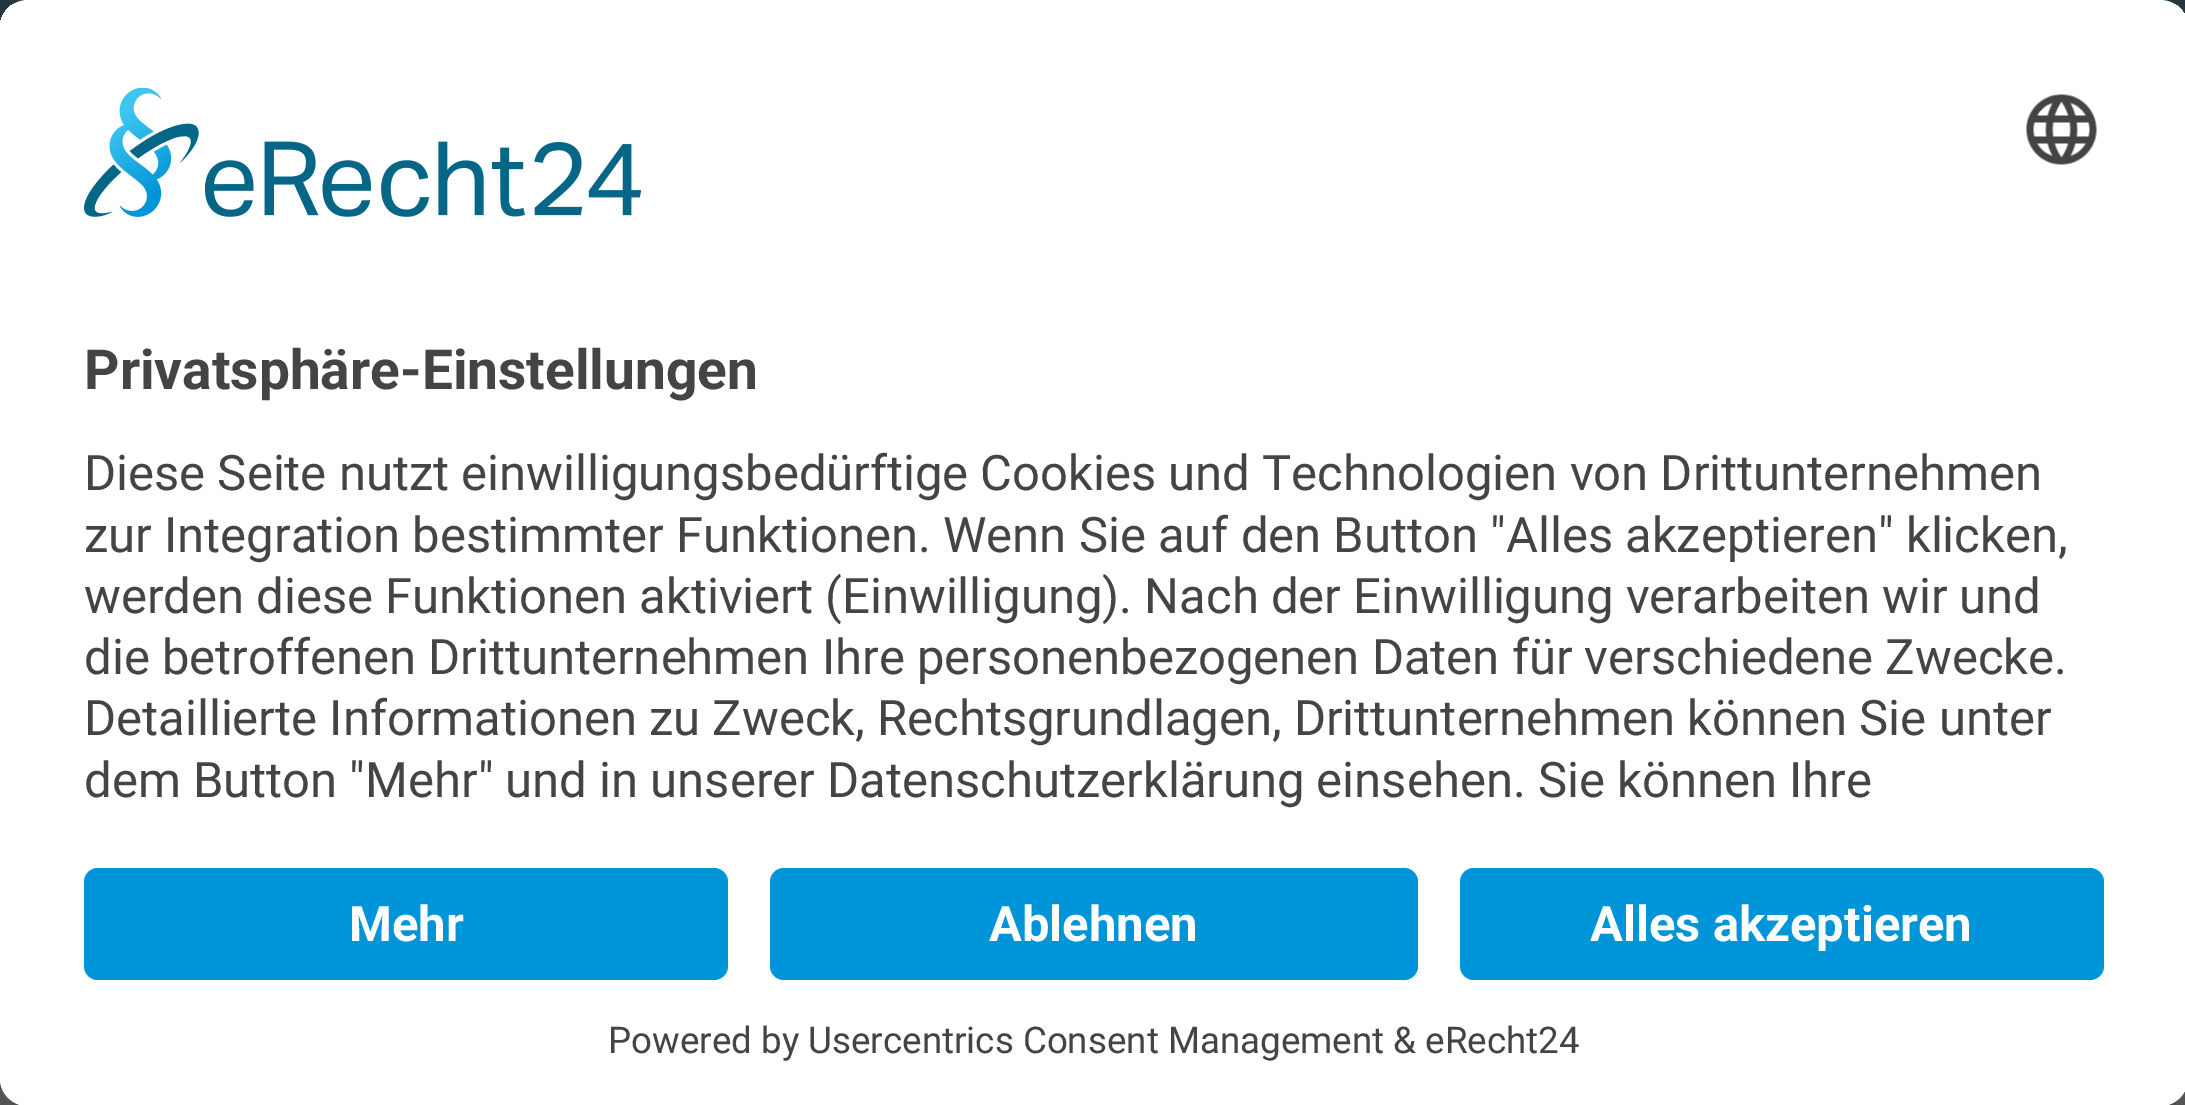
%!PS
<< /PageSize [2185 1105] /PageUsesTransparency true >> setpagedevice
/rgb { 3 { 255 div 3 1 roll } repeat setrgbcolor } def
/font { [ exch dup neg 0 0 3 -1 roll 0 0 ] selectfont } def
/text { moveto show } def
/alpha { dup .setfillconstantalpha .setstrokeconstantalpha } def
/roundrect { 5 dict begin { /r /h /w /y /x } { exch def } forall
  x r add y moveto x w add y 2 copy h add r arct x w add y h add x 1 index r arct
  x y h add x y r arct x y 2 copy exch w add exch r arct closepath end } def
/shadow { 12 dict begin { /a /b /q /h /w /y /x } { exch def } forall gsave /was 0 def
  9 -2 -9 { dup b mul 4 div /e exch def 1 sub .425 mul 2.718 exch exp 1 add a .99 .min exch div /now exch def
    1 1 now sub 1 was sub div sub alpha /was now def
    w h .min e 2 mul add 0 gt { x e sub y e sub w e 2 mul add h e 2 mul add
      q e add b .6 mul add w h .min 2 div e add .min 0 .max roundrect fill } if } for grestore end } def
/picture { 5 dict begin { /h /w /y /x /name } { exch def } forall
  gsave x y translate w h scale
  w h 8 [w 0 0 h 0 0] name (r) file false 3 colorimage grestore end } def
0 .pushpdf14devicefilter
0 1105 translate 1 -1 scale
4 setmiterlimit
112 112 112 rgb
0 0 2185 1105 rectfill
36 59 69 rgb
0 0 2185 28 rectfill
0 0 0 rgb
0 70 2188 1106 28 49 0.3 shadow
0 18 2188 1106 28 45.5 0.22 shadow
255 255 255 rgb
0 0 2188 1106 28 roundrect fill
gsave
0 0 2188 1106 28 roundrect clip newpath
28 0 moveto 2132 0 rlineto 15.5 0 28 12.5 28 28 rcurveto 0 812 rlineto -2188 0 rlineto 0 -812 rlineto 0 -15.5 12.5 -28 28 -28 rcurveto closepath clip newpath
0 4 2185 836 rectfill
grestore
(img_01.rgb) 84 88 558 129 picture
(img_02.rgb) 2026 94 71 71 picture
0 840 moveto 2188 0 rlineto 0 238 rlineto 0 15.5 -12.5 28 -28 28 rcurveto -2132 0 rlineto -15.5 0 -28 -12.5 -28 -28 rcurveto closepath fill
0 148 216 rgb
84 868 644 112 14 roundrect fill
770 868 648 112 14 roundrect fill
1460 868 644 112 14 roundrect fill
/Roboto-Bold 55.1 font
68 68 68 rgb
(Privatsphäre-Einstellungen) 84 389 text
/Roboto-Regular 49 font
(Diese Seite nutzt einwilligungsbedürftige Cookies und Technologien von Drittunternehmen) 84 490 text
(zur Integration bestimmter Funktionen. Wenn Sie auf den Button "Alles akzeptieren" klicken,) 84 552 text
(werden diese Funktionen aktiviert \(Einwilligung\). Nach der Einwilligung verarbeiten wir und) 84 613 text
(die betroffenen Drittunternehmen Ihre personenbezogenen Daten für verschiedene Zwecke.) 84 674 text
(Detaillierte Informationen zu Zweck, Rechtsgrundlagen, Drittunternehmen können Sie unter) 84 735 text
(dem Button "Mehr" und in unserer Datenschutzerklärung einsehen. Sie können Ihre) 84 797 text
/Roboto-Bold 49 font
255 255 255 rgb
(Mehr) 349 941 text
(Ablehnen) 989 941 text
(Alles akzeptieren) 1590 941 text
/Roboto-Regular 36.75 font
68 68 68 rgb
(Powered by Usercentrics Consent Management & eRecht24) 608 1053 text
.poppdf14devicefilter showpage
